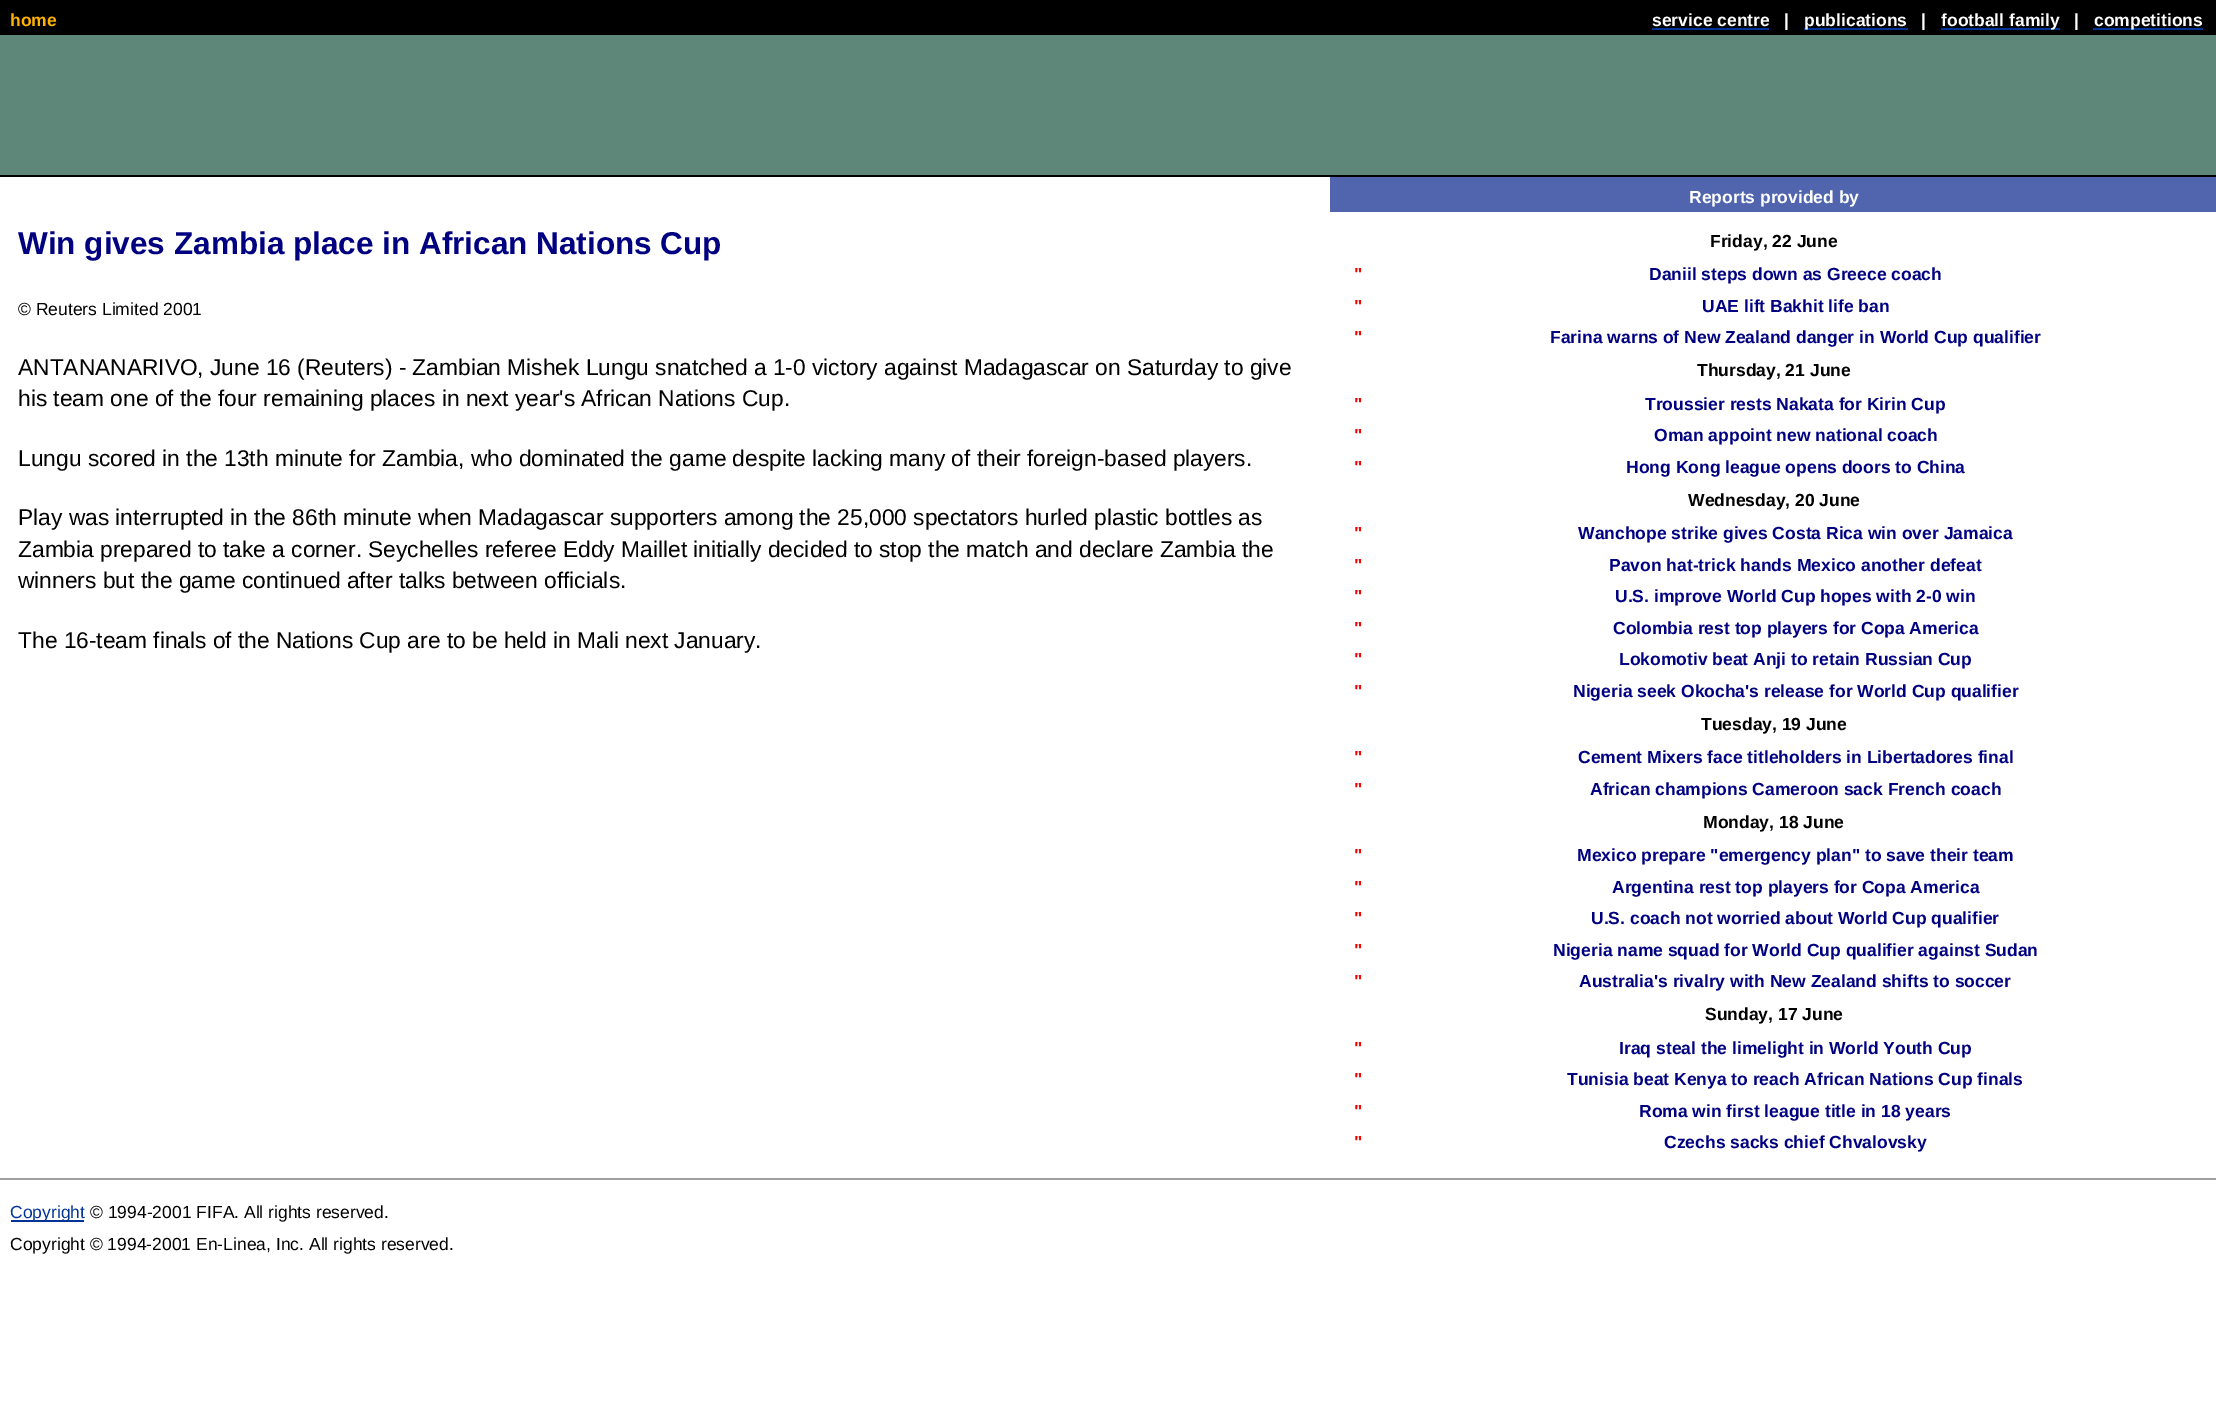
%!PS
<< /PageSize [2216 1413] >> setpagedevice
/rgb { 3 { 255 div 3 1 roll } repeat setrgbcolor } def
/font { [ exch dup neg 0 0 3 -1 roll 0 0 ] selectfont } def
/text { moveto show } def
0 1413 translate 1 -1 scale
4 setmiterlimit
255 255 255 rgb
0 0 2216 1413 rectfill
0 0 0 rgb
0 0 2216 35 rectfill
0 51 153 rgb
1652 28 117 2 rectfill
1804 28 104 2 rectfill
1941 28 119 2 rectfill
2093 28 110 2 rectfill
95 135 121 rgb
0 35 2216 140 rectfill
0 0 0 rgb
0 175 2216 2 rectfill
80 101 173 rgb
1330 177 886 35 rectfill
159 159 159 rgb
0 1178 2216 2 rectfill
0 51 153 rgb
11 1220 73 2 rectfill
/LiberationSans-Bold 17.5 font
255 178 0 rgb
(home) 10 26 text
255 255 255 rgb
(service centre) 1652 26 text
(|) 1784 26 text
(publications) 1804 26 text
(|) 1921 26 text
(football family) 1941 26 text
(|) 2074 26 text
(competitions) 2094 26 text
/LiberationSans-Bold 31.5 font
0 0 128 rgb
(Win gives Zambia place in African Nations Cup) 18 254 text
/LiberationSans-Regular 17.5 font
0 0 0 rgb
(© Reuters Limited 2001) 18 315 text
/LiberationSans-Regular 22.75 font
(ANTANANARIVO, June 16 \(Reuters\) - Zambian Mishek Lungu snatched a 1-0 victory against Madagascar on Saturday to give) 18 375 text
(his team one of the four remaining places in next year's African Nations Cup.) 18 406 text
(Lungu scored in the 13th minute for Zambia, who dominated the game despite lacking many of their foreign-based players.) 18 466 text
(Play was interrupted in the 86th minute when Madagascar supporters among the 25,000 spectators hurled plastic bottles as) 18 525 text
(Zambia prepared to take a corner. Seychelles referee Eddy Maillet initially decided to stop the match and declare Zambia the) 18 557 text
(winners but the game continued after talks between officials.) 18 588 text
(The 16-team finals of the Nations Cup are to be held in Mali next January.) 18 648 text
/LiberationSans-Bold 17.5 font
255 255 255 rgb
(Reports provided by) 1689 203 text
0 0 0 rgb
(Friday, 22 June) 1710 247 text
255 0 0 rgb
(") 1354 280 text
0 0 128 rgb
(Daniil steps down as Greece coach) 1649 280 text
255 0 0 rgb
(") 1354 312 text
0 0 128 rgb
(UAE lift Bakhit life ban) 1702 312 text
255 0 0 rgb
(") 1354 343 text
0 0 128 rgb
(Farina warns of New Zealand danger in World Cup qualifier) 1550 343 text
0 0 0 rgb
(Thursday, 21 June) 1697 376 text
255 0 0 rgb
(") 1354 410 text
0 0 128 rgb
(Troussier rests Nakata for Kirin Cup) 1645 410 text
255 0 0 rgb
(") 1354 441 text
0 0 128 rgb
(Oman appoint new national coach) 1654 441 text
255 0 0 rgb
(") 1354 473 text
0 0 128 rgb
(Hong Kong league opens doors to China) 1626 473 text
0 0 0 rgb
(Wednesday, 20 June) 1688 506 text
255 0 0 rgb
(") 1354 539 text
0 0 128 rgb
(Wanchope strike gives Costa Rica win over Jamaica) 1578 539 text
255 0 0 rgb
(") 1354 571 text
0 0 128 rgb
(Pavon hat-trick hands Mexico another defeat) 1609 571 text
255 0 0 rgb
(") 1354 602 text
0 0 128 rgb
(U.S. improve World Cup hopes with 2-0 win) 1615 602 text
255 0 0 rgb
(") 1354 634 text
0 0 128 rgb
(Colombia rest top players for Copa America) 1613 634 text
255 0 0 rgb
(") 1354 665 text
0 0 128 rgb
(Lokomotiv beat Anji to retain Russian Cup) 1619 665 text
255 0 0 rgb
(") 1354 697 text
0 0 128 rgb
(Nigeria seek Okocha's release for World Cup qualifier) 1573 697 text
0 0 0 rgb
(Tuesday, 19 June) 1701 730 text
255 0 0 rgb
(") 1354 763 text
0 0 128 rgb
(Cement Mixers face titleholders in Libertadores final) 1578 763 text
255 0 0 rgb
(") 1354 795 text
0 0 128 rgb
(African champions Cameroon sack French coach) 1590 795 text
0 0 0 rgb
(Monday, 18 June) 1703 828 text
255 0 0 rgb
(") 1354 861 text
0 0 128 rgb
(Mexico prepare "emergency plan" to save their team) 1577 861 text
255 0 0 rgb
(") 1354 893 text
0 0 128 rgb
(Argentina rest top players for Copa America) 1612 893 text
255 0 0 rgb
(") 1354 924 text
0 0 128 rgb
(U.S. coach not worried about World Cup qualifier) 1591 924 text
255 0 0 rgb
(") 1354 956 text
0 0 128 rgb
(Nigeria name squad for World Cup qualifier against Sudan) 1553 956 text
255 0 0 rgb
(") 1354 987 text
0 0 128 rgb
(Australia's rivalry with New Zealand shifts to soccer) 1579 987 text
0 0 0 rgb
(Sunday, 17 June) 1705 1020 text
255 0 0 rgb
(") 1354 1054 text
0 0 128 rgb
(Iraq steal the limelight in World Youth Cup) 1619 1054 text
255 0 0 rgb
(") 1354 1085 text
0 0 128 rgb
(Tunisia beat Kenya to reach African Nations Cup finals) 1567 1085 text
255 0 0 rgb
(") 1354 1117 text
0 0 128 rgb
(Roma win first league title in 18 years) 1639 1117 text
255 0 0 rgb
(") 1354 1148 text
0 0 128 rgb
(Czechs sacks chief Chvalovsky) 1664 1148 text
/LiberationSans-Regular 17.5 font
0 51 153 rgb
(Copyright) 10 1218 text
0 0 0 rgb
(© 1994-2001 FIFA. All rights reserved.) 90 1218 text
(Copyright © 1994-2001 En-Linea, Inc. All rights reserved.) 10 1250 text
showpage
